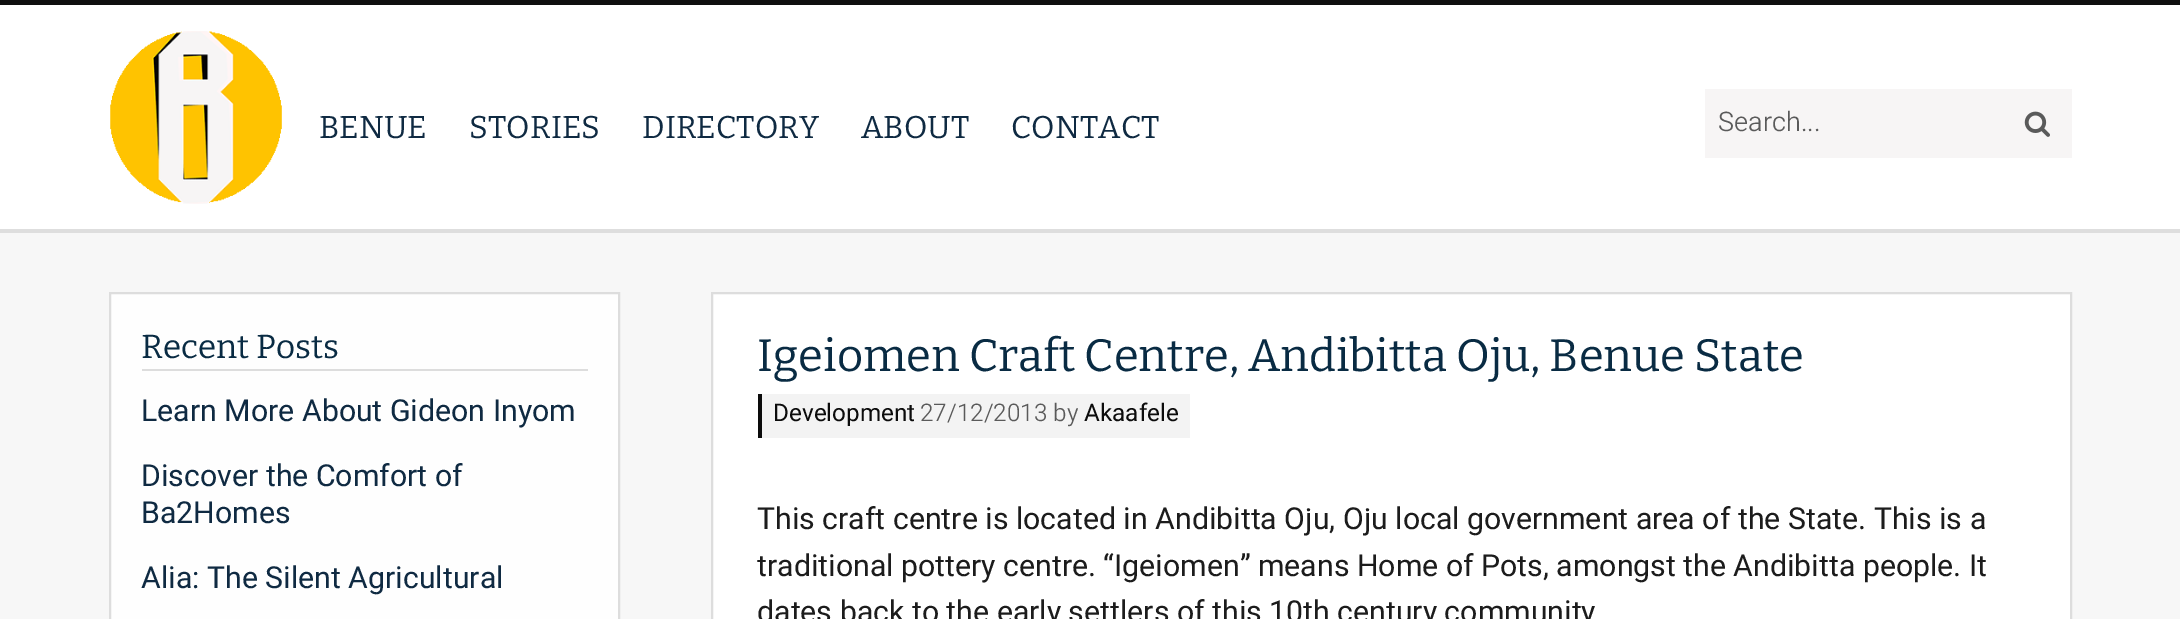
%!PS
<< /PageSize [2180 619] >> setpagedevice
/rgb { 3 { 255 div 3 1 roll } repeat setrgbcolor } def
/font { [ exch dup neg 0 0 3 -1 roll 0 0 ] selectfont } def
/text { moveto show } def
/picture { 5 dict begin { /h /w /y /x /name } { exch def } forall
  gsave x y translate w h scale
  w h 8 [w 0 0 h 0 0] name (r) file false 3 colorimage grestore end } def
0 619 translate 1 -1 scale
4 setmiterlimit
247 247 247 rgb
0 0 2180 619 rectfill
15 15 15 rgb
0 0 2180 5 rectfill
255 255 255 rgb
0 5 2180 224 rectfill
222 222 222 rgb
0 229 2180 4 rectfill
(img_01.rgb) 110 31 172 173 picture
247 245 245 rgb
1705 89 367 69 rectfill
(img_02.rgb) 2024 111 26 26 picture
254 254 254 rgb
110 293 moveto 509 0 rlineto 0 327 rlineto -509 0 rlineto closepath gsave fill grestore
221 221 221 rgb
2 setlinewidth
stroke
142 369 446 2 rectfill
255 255 255 rgb
712 293 moveto 1359 0 rlineto 0 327 rlineto -1359 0 rlineto closepath gsave fill grestore
221 221 221 rgb
stroke
243 243 243 rgb
762 394 428 44 rectfill
12 12 12 rgb
758 394 4 44 rectfill
/Bitter-Thin 31.5 font
15 42 66 rgb
(BENUE) 319 138 text
(STORIES) 469 138 text
(DIRECTORY) 642 138 text
(ABOUT) 861 138 text
(CONTACT) 1011 138 text
/Heebo-Light 27 font
90 90 90 rgb
(Search...) 1718 131 text
/Bitter-Thin 33.25 font
9 43 67 rgb
(Recent Posts) 141 358 text
/Heebo-Regular 30.25 font
15 42 66 rgb
(Learn More About Gideon Inyom) 141 421 text
(Discover the Comfort of) 141 486 text
(Ba2Homes) 141 523 text
(Alia: The Silent Agricultural) 141 588 text
/Bitter-Thin 45.4 font
9 43 67 rgb
(Igeiomen Craft Centre, Andibitta Oju, Benue State) 757 371 text
/Heebo-Regular 24.25 font
12 12 12 rgb
(Development) 773 421 text
/Heebo-Light 24.25 font
90 90 90 rgb
(27/12/2013 by) 920 421 text
/Heebo-Regular 24.25 font
12 12 12 rgb
(Akaafele) 1084 421 text
/Heebo-Regular 30.25 font
28 28 28 rgb
(This craft centre is located in Andibitta Oju, Oju local government area of the State. This is a) 757 529 text
(traditional pottery centre. “Igeiomen” means Home of Pots, amongst the Andibitta people. It) 757 576 text
(dates back to the early settlers of this 10th century community) 757 622 text
showpage
